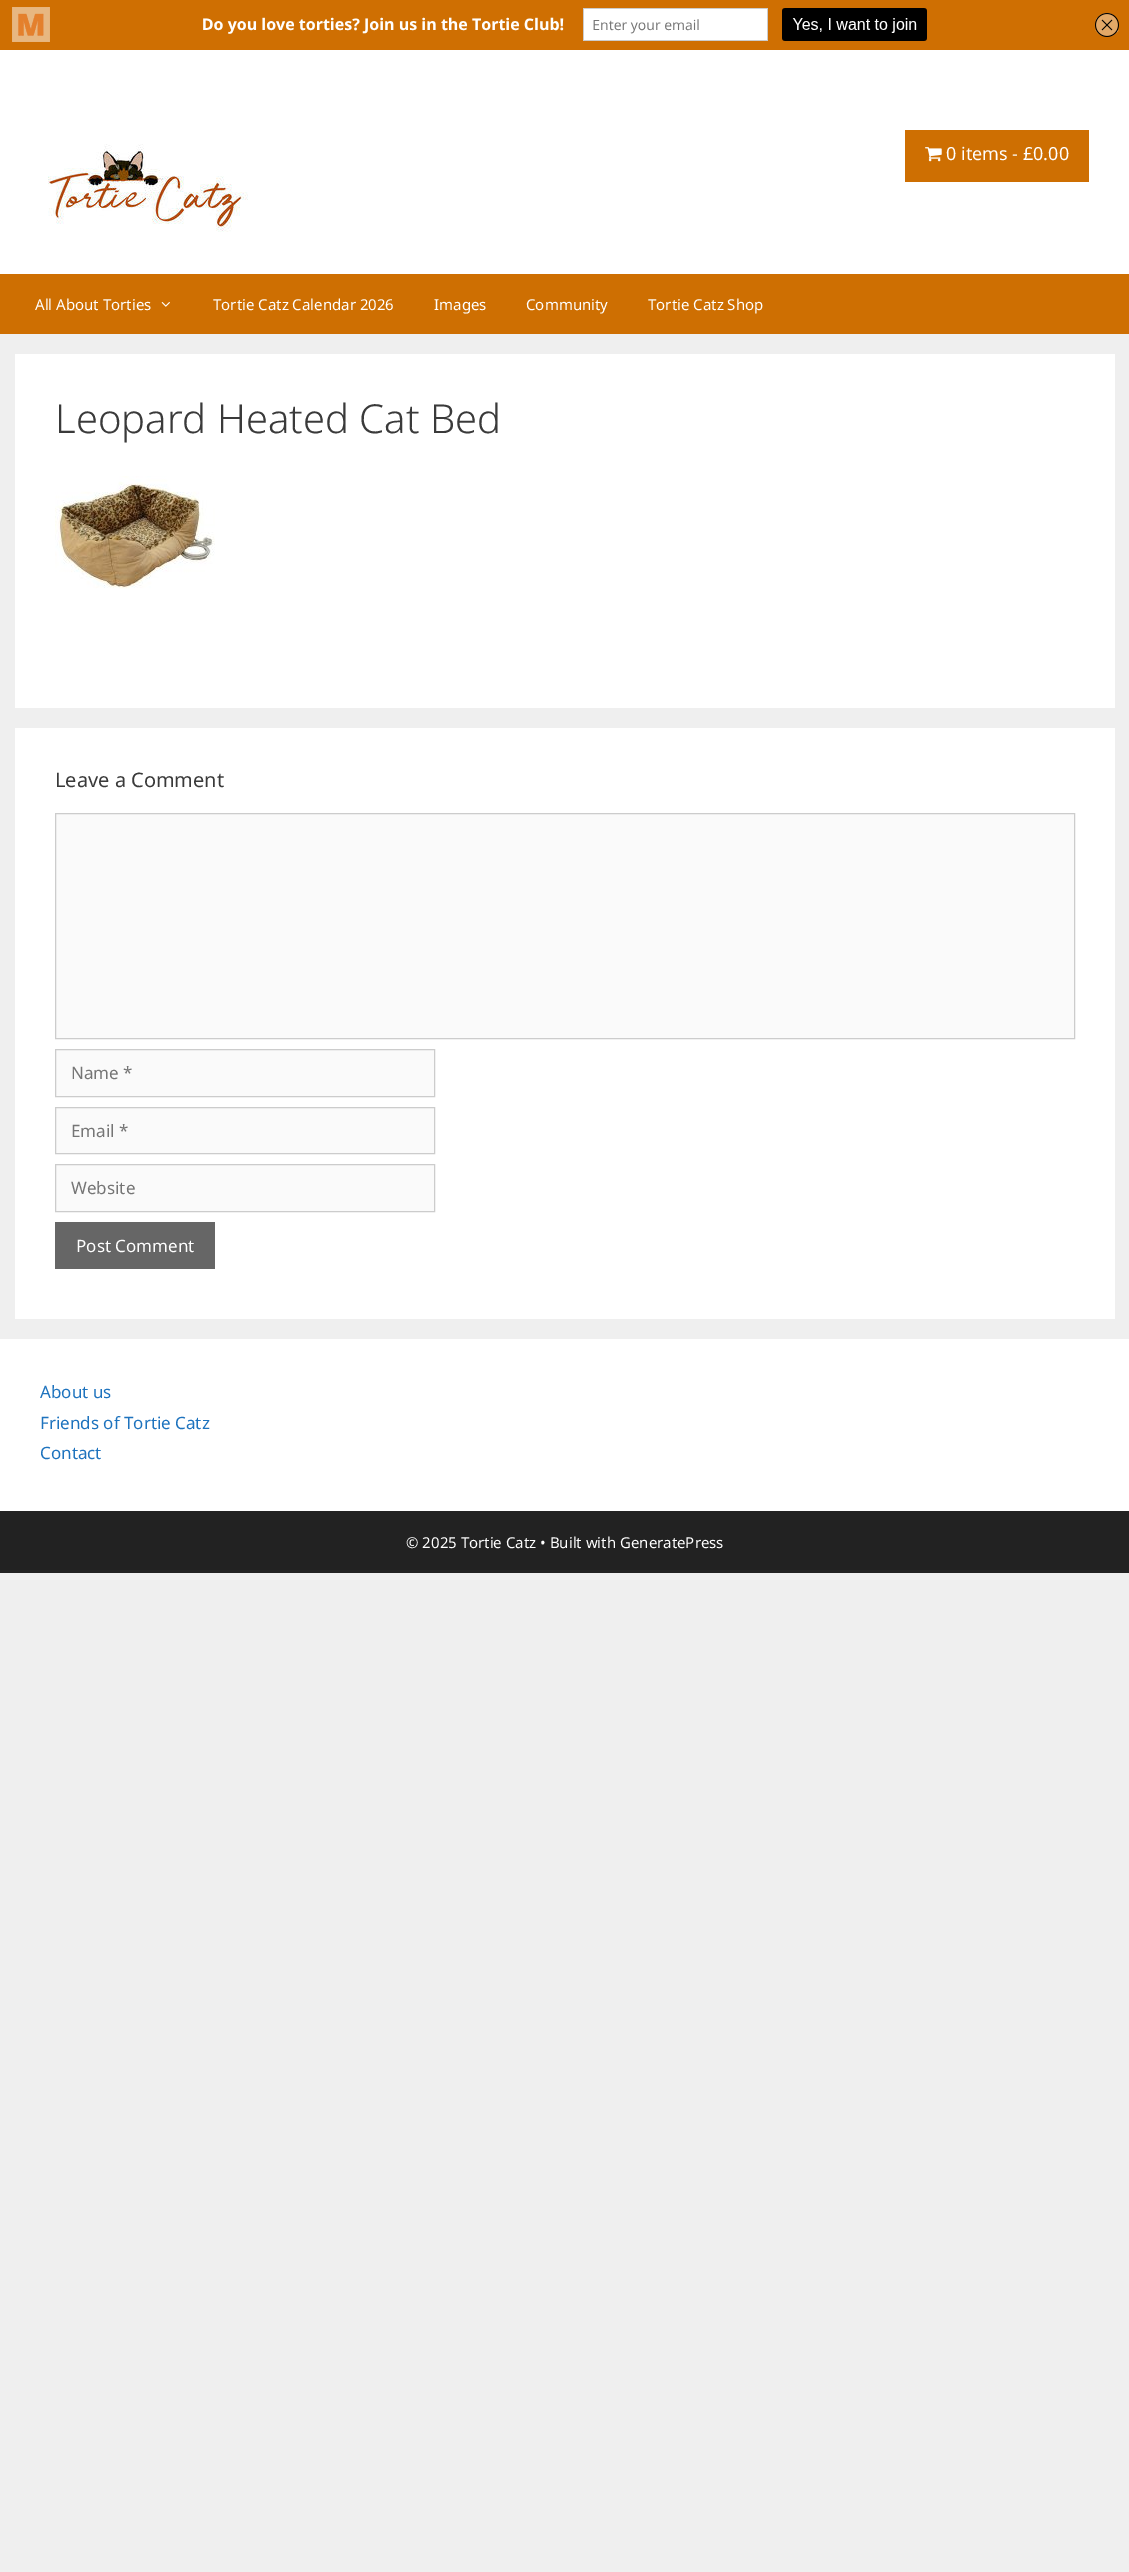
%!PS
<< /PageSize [1129 2572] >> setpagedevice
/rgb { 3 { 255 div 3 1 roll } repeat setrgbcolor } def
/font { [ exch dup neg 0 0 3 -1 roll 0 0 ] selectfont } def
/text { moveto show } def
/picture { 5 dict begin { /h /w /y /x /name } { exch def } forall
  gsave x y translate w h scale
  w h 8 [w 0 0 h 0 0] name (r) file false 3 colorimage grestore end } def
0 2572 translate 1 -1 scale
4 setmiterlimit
239 239 239 rgb
0 0 1129 2572 rectfill
(img_01.rgb) 0 0 1129 50 picture
255 255 255 rgb
0 50 1129 224 rectfill
(img_02.rgb) 48 144 200 88 picture
206 111 2 rgb
905 130 184 52 rectfill
(img_03.rgb) 925 147 17 15 picture
0 274 1129 60 rectfill
(img_04.rgb) 161 302 9 5 picture
255 255 255 rgb
15 354 1100 354 rectfill
(img_05.rgb) 55 476 160 113 picture
15 728 1100 591 rectfill
250 250 250 rgb
55.5 813.5 moveto 1019 0 rlineto 0 225 rlineto -1019 0 rlineto closepath gsave fill grestore
204 204 204 rgb
stroke
250 250 250 rgb
55.5 1049.5 moveto 379 0 rlineto 0 47 rlineto -379 0 rlineto closepath gsave fill grestore
204 204 204 rgb
stroke
250 250 250 rgb
55.5 1107.5 moveto 379 0 rlineto 0 46 rlineto -379 0 rlineto closepath gsave fill grestore
204 204 204 rgb
stroke
250 250 250 rgb
55.5 1164.5 moveto 379 0 rlineto 0 47 rlineto -379 0 rlineto closepath gsave fill grestore
204 204 204 rgb
stroke
102 102 102 rgb
55 1222 160 47 rectfill
255 255 255 rgb
0 1339 1129 172 rectfill
34 34 34 rgb
0 1511 1129 62 rectfill
/NotoSans-Regular 18 font
255 255 255 rgb
(0 items - £0.00) 946 160 text
/NotoSans-Regular 15 font
(All About Torties) 35 310 text
(Tortie Catz Calendar 2026) 213 310 text
(Images) 434 310 text
(Community) 526 310 text
(Tortie Catz Shop) 648 310 text
/NotoSans-Light 40 font
58 58 58 rgb
(Leopard Heated Cat Bed) 55 433 text
/NotoSans-Regular 20 font
(Leave a Comment) 55 787 text
/NotoSans-Regular 17 font
117 117 117 rgb
(Name *) 71 1079 text
(Email *) 71 1137 text
(Website) 71 1194 text
255 255 255 rgb
(Post Comment) 76 1252 text
30 115 190 rgb
(About us) 40 1398 text
(Friends of Tortie Catz) 40 1429 text
(Contact) 40 1459 text
/NotoSans-Regular 15 font
255 255 255 rgb
(© 2025 Tortie Catz • Built with GeneratePress) 406 1548 text
showpage
